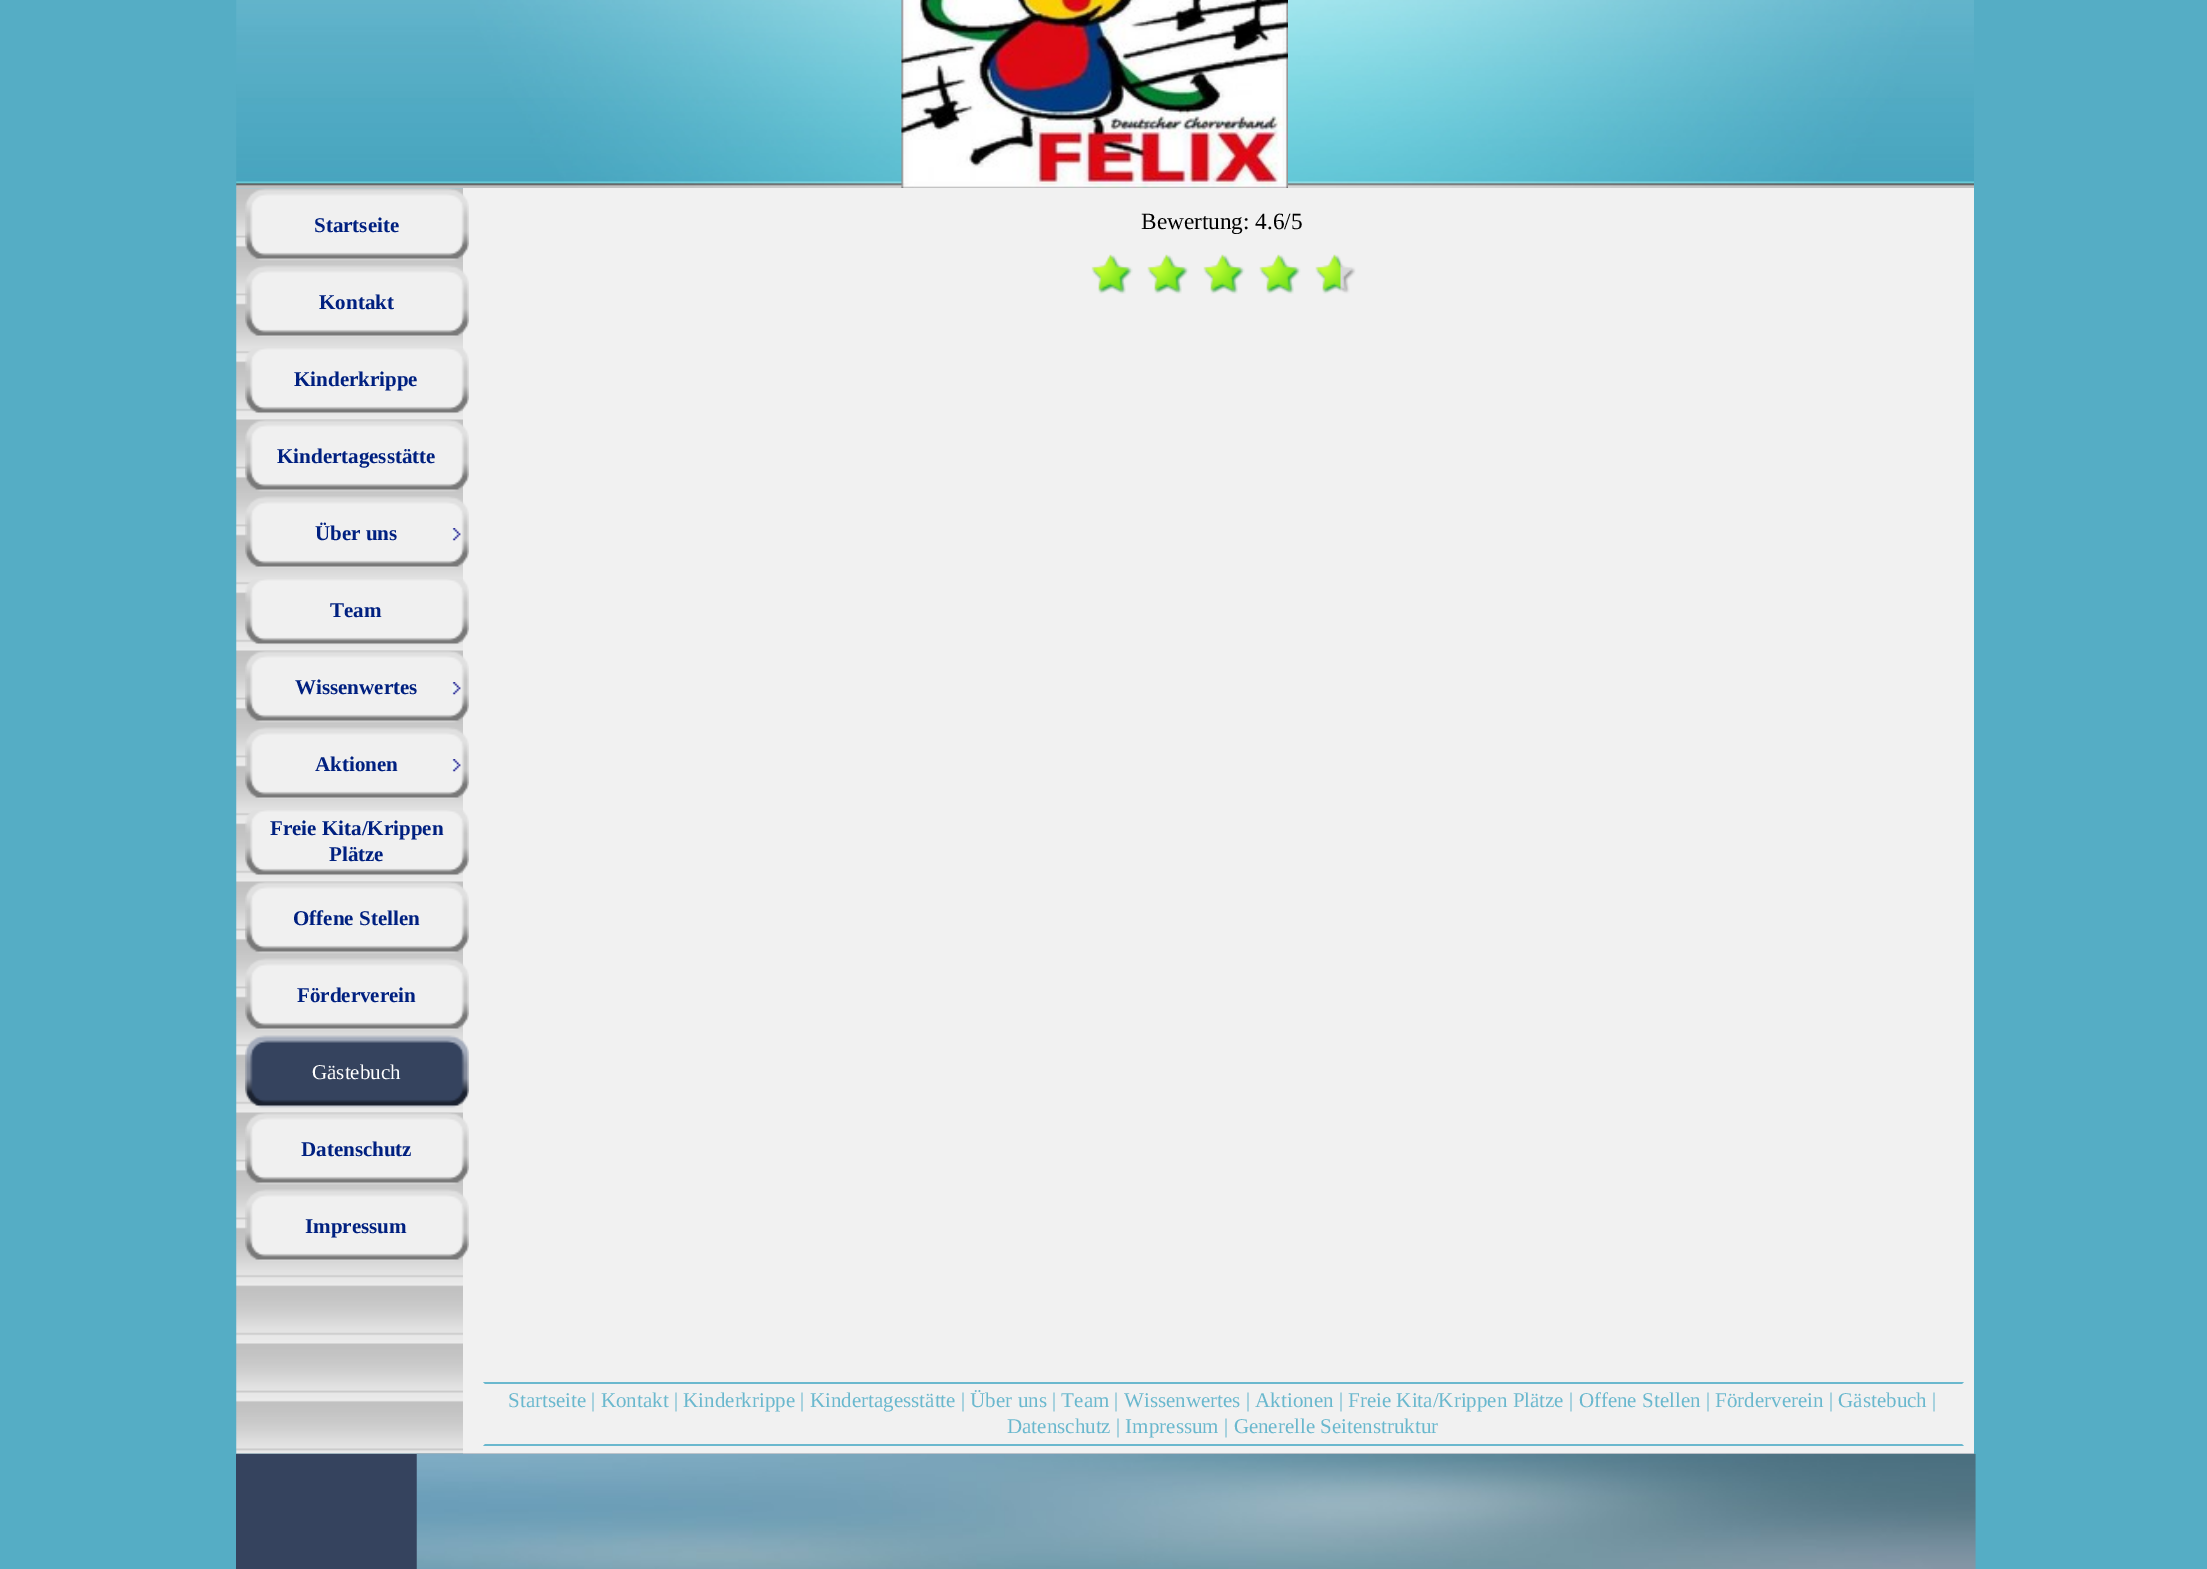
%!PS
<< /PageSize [2207 1569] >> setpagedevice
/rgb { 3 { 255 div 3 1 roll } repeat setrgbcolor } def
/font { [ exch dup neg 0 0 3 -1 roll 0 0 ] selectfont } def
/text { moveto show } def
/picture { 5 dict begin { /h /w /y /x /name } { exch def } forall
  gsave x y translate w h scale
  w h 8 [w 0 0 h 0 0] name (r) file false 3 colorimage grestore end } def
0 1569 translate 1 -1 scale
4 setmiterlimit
85 173 197 rgb
0 0 2207 1569 rectfill
(img_01.rgb) 236 0 1738 189 picture
(img_02.rgb) 901 0 387 188 picture
(img_03.rgb) 236 188 227 1266 picture
241 241 241 rgb
463 188 1511 1266 rectfill
(img_04.rgb) 245 188 224 73 picture
(img_05.rgb) 245 265 224 72 picture
(img_06.rgb) 245 348 224 66 picture
(img_07.rgb) 245 420 224 72 picture
(img_08.rgb) 245 496 224 72 picture
(img_09.rgb) 452 528 9 13 picture
(img_06.rgb) 245 579 224 66 picture
(img_07.rgb) 245 651 224 72 picture
(img_09.rgb) 452 682 9 13 picture
(img_05.rgb) 245 727 224 72 picture
(img_09.rgb) 452 759 9 13 picture
(img_06.rgb) 245 810 224 66 picture
(img_07.rgb) 245 882 224 72 picture
(img_08.rgb) 245 958 224 72 picture
(img_10.rgb) 245 1035 224 73 picture
(img_07.rgb) 245 1113 224 72 picture
(img_05.rgb) 245 1189 224 72 picture
(img_11.rgb) 1092 255 264 39 picture
(img_12.rgb) 1091 254 250 40 picture
106 184 206 rgb
483 1382 moveto 1481 0 rlineto -2 2 rlineto -1477 0 rlineto closepath fill
1964 1446 moveto -1481 0 rlineto 2 -2 rlineto 1477 0 rlineto closepath fill
53 67 94 rgb
236 1454 181 115 rectfill
(img_13.rgb) 236 1453 1738 1 picture
(img_14.rgb) 416 1453 1560 116 picture
/LiberationSerif-Bold 21 font
0 32 128 rgb
(Startseite) 314 232 text
(Kontakt) 319 309 text
(Kinderkrippe) 294 386 text
(Kindertagesstätte) 277 463 text
(Über uns) 315 540 text
(Team) 330 617 text
(Wissenwertes) 295 694 text
(Aktionen) 315 771 text
(Freie Kita/Krippen) 270 835 text
(Plätze) 329 861 text
(Offene Stellen) 293 925 text
(Förderverein) 297 1002 text
/LiberationSerif-Regular 21 font
255 255 255 rgb
(Gästebuch) 312 1079 text
/LiberationSerif-Bold 21 font
0 32 128 rgb
(Datenschutz) 301 1156 text
(Impressum) 305 1233 text
/LiberationSerif-Regular 23.25 font
0 0 0 rgb
(Bewertung: 4.6/5) 1141 229 text
/LiberationSerif-Regular 21 font
106 184 206 rgb
(Startseite | Kontakt | Kinderkrippe | Kindertagesstätte | Über uns | Team | Wissenwertes | Aktionen | Freie Kita/Krippen Plätze | Offene Stellen | Förderverein | Gästebuch |) 508 1407 text
(Datenschutz | Impressum | Generelle Seitenstruktur) 1007 1433 text
showpage
